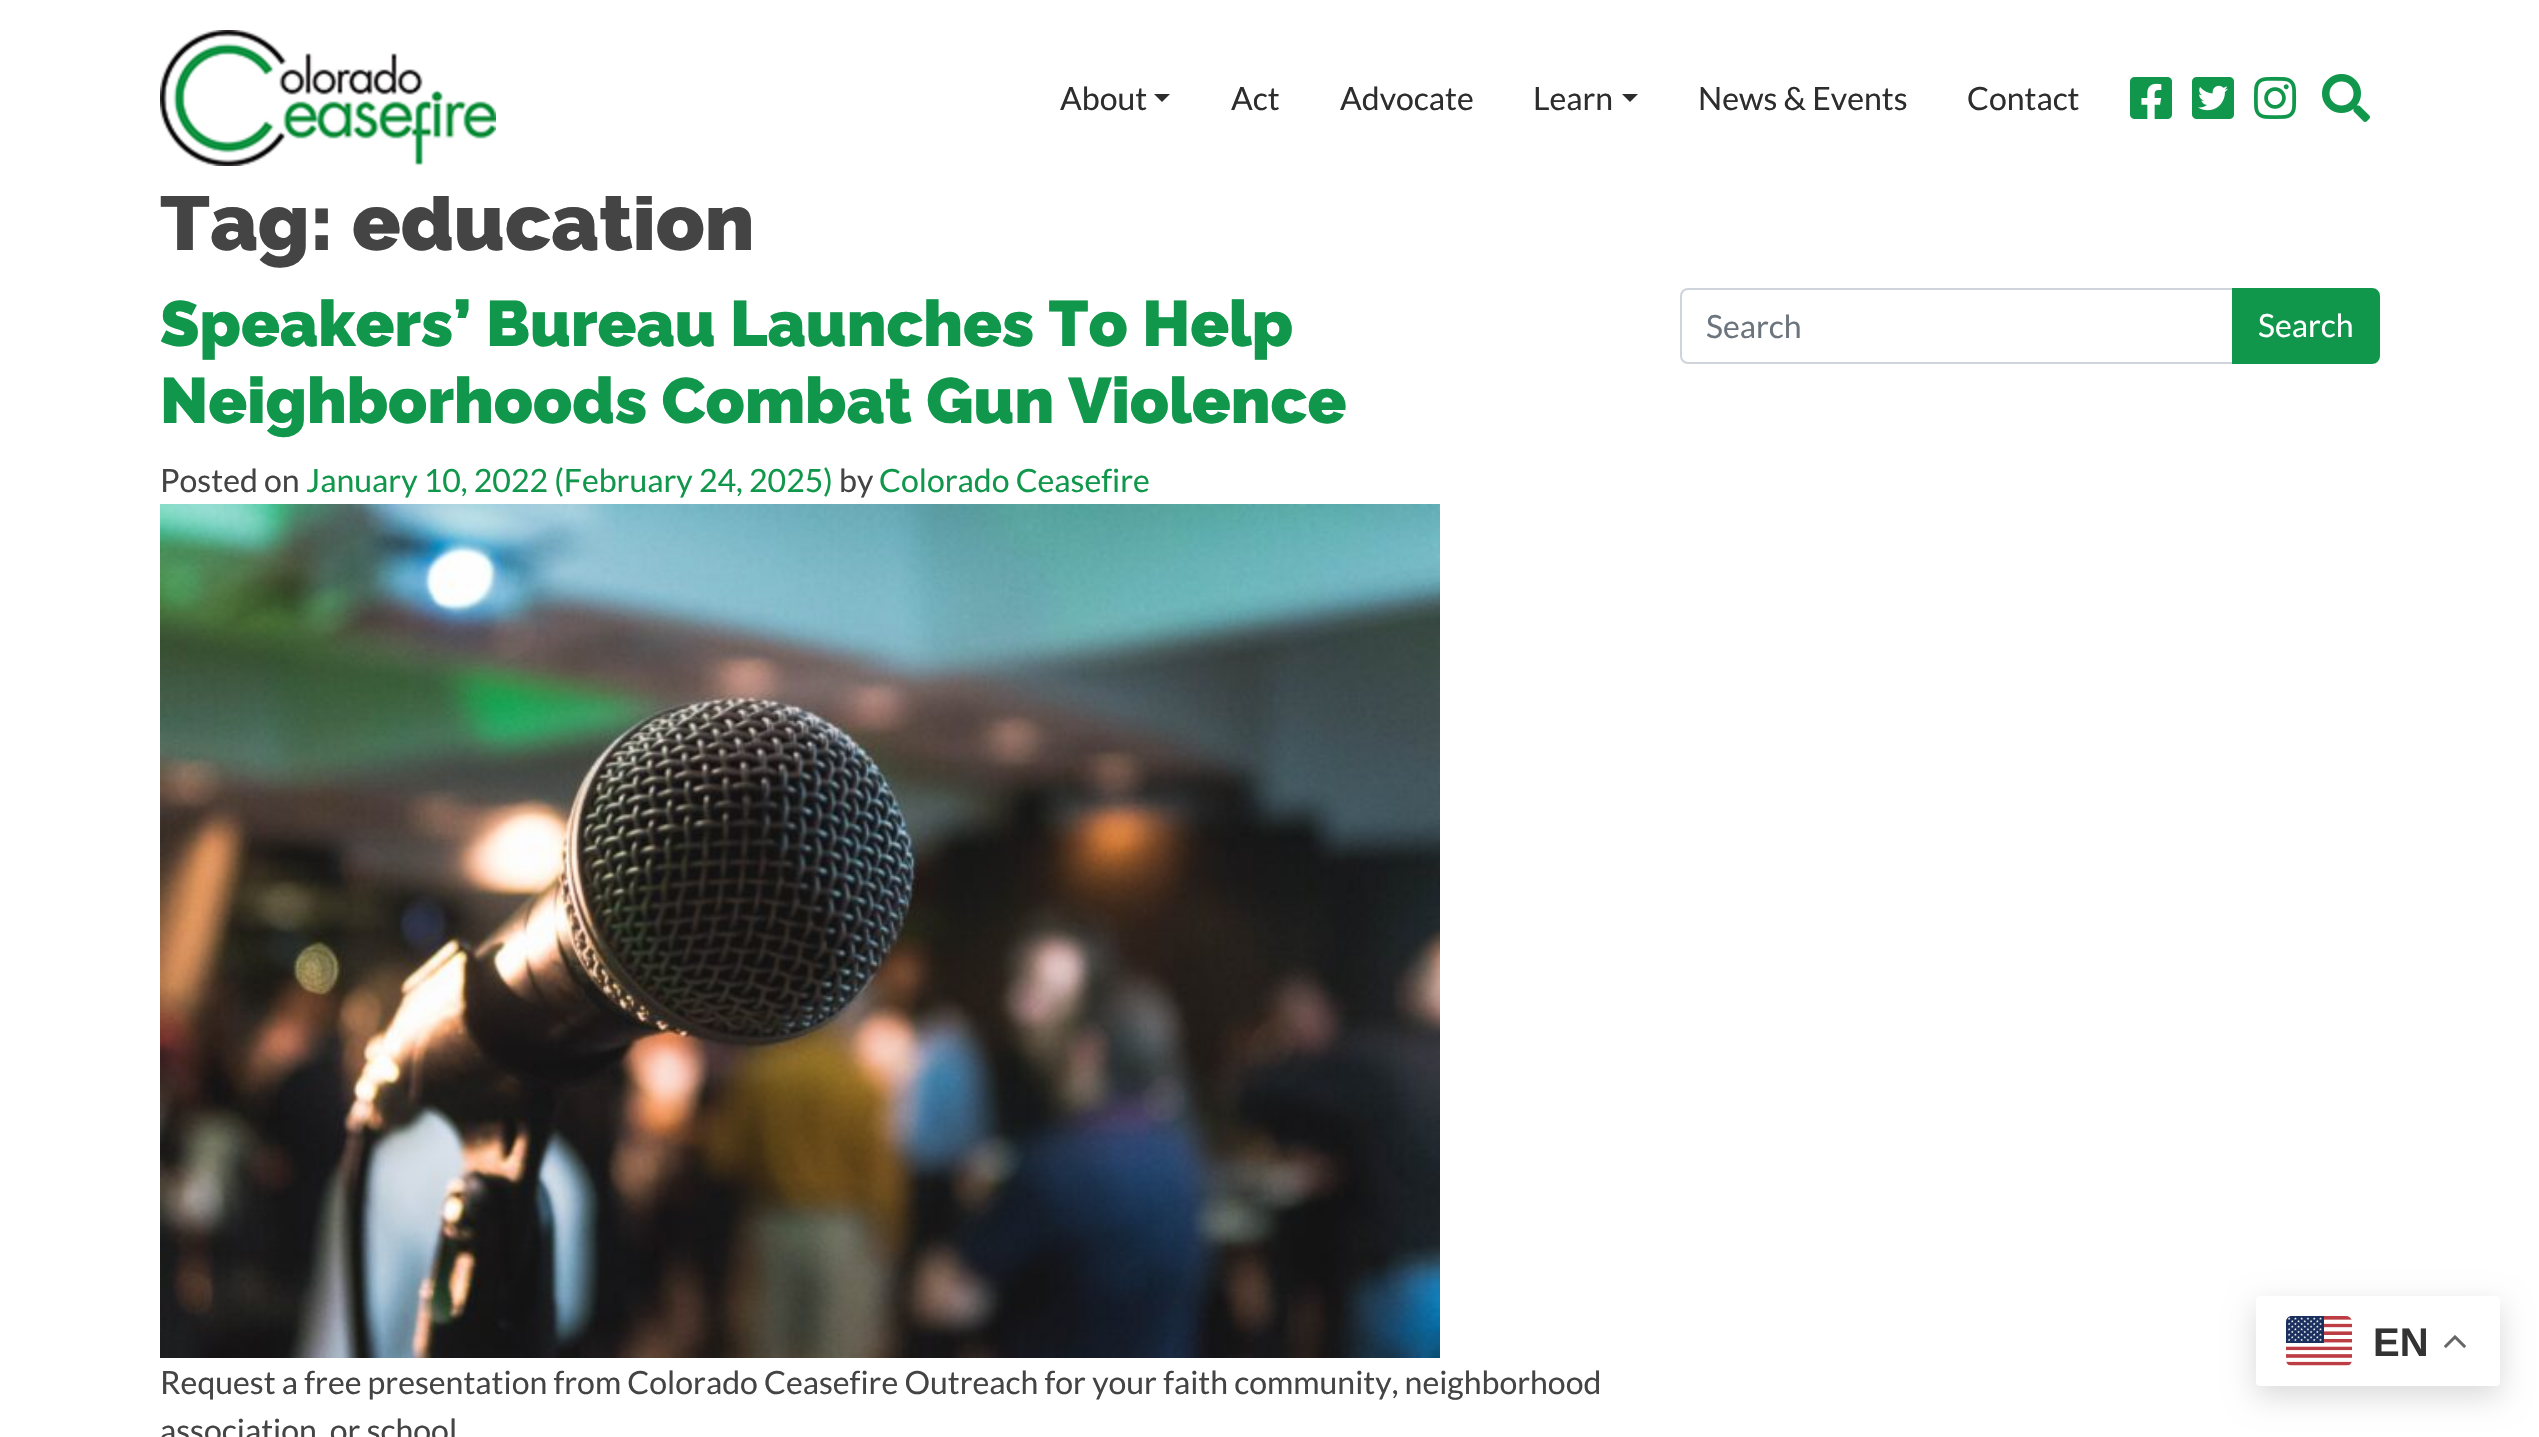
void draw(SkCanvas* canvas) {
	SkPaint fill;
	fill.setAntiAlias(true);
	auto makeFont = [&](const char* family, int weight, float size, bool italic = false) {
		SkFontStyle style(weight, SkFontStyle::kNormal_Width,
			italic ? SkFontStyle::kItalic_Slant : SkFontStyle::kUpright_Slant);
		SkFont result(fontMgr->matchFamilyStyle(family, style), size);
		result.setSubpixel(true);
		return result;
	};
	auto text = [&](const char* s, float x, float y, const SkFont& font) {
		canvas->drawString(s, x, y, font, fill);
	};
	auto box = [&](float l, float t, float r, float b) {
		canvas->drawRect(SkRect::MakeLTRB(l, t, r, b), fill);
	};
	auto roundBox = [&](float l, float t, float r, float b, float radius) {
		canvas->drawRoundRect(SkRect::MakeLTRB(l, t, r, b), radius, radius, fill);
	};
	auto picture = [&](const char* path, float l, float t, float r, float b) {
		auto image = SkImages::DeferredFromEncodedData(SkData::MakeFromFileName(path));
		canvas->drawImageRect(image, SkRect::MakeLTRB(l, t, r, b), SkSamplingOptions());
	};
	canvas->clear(0xFFFFFFFF);
	picture("image0.png", 160, 30, 496, 166);
	fill.setColor(0xFF2D2D2D);
	canvas->drawPath(SkPathBuilder().moveTo(1154, 94).lineTo(1170, 94).lineTo(1162, 102).close().detach(), fill);
	canvas->drawPath(SkPathBuilder().moveTo(1622, 94).lineTo(1638, 94).lineTo(1630, 102).close().detach(), fill);
	picture("image1.png", 2130, 77, 2172, 119);
	picture("image2.png", 2192, 77, 2234, 119);
	picture("image3.png", 2254, 76, 2297, 119);
	picture("image4.png", 2322, 74, 2370, 122);
	picture("image5.png", 160, 504, 1440, 1358);
	fill.setStyle(SkPaint::kStroke_Style);
	fill.setStrokeWidth(2);
	fill.setColor(0xFFCED4DA);
	canvas->drawPath(SkPathBuilder().moveTo(1688, 289).lineTo(2233, 289).lineTo(2233, 363).lineTo(1688, 363).cubicTo(1684, 363, 1681, 360, 1681, 356).lineTo(1681, 296).cubicTo(1681, 292, 1684, 289, 1688, 289).close().detach(), fill);
	fill.setStyle(SkPaint::kFill_Style);
	fill.setColor(0xFF10974B);
	canvas->drawPath(SkPathBuilder().moveTo(2233, 289).lineTo(2372, 289).cubicTo(2376, 289, 2379, 292, 2379, 296).lineTo(2379, 356).cubicTo(2379, 360, 2376, 363, 2372, 363).lineTo(2233, 363).close().detach(), fill);
	fill.setStyle(SkPaint::kStroke_Style);
	canvas->drawPath(SkPathBuilder().moveTo(2233, 289).lineTo(2372, 289).cubicTo(2376, 289, 2379, 292, 2379, 296).lineTo(2379, 356).cubicTo(2379, 360, 2376, 363, 2372, 363).lineTo(2233, 363).close().detach(), fill);
	fill.setStyle(SkPaint::kFill_Style);
	fill.setColor(0x26000000);
	fill.setMaskFilter(SkMaskFilter::MakeBlur(kNormal_SkBlurStyle, 15));
	canvas->drawRoundRect(SkRect::MakeLTRB(2256, 1306, 2500, 1396), 4, 4, fill);
	fill.setMaskFilter(nullptr);
	fill.setColor(0xFFFFFFFF);
	roundBox(2256, 1296, 2500, 1386, 4);
	picture("image6.png", 2286, 1316, 2352, 1366);
	picture("image7.png", 2444, 1335, 2466, 1348);
	auto font1 = makeFont("Lato", 400, 32);
	fill.setColor(0xFF2D2D2D);
	text("About", 1060, 110, font1);
	text("Act", 1231, 110, font1);
	text("Advocate", 1340, 110, font1);
	text("Learn", 1533, 110, font1);
	text("News & Events", 1698, 110, font1);
	text("Contact", 1967, 110, font1);
	auto font2 = makeFont("Raleway", 100, 80);
	fill.setColor(0xFF444444);
	text("Tag: education", 160, 250, font2);
	fill.setColor(0xFFFFFFFF);
	box(160, 191, 652, 196);
	auto font3 = makeFont("Raleway", 100, 64);
	fill.setColor(0xFF10974B);
	text("Speakers’ Bureau Launches To Help", 160, 346, font3);
	text("Neighborhoods Combat Gun Violence", 160, 423, font3);
	fill.setColor(0xFF444444);
	text("Posted on", 160, 492, font1);
	fill.setColor(0xFF10974B);
	text("January 10, 2022 (February 24, 2025)", 306, 492, font1);
	fill.setColor(0xFF444444);
	text("by", 839, 492, font1);
	fill.setColor(0xFF10974B);
	text("Colorado Ceasefire", 879, 492, font1);
	fill.setColor(0xFF444444);
	text("Request a free presentation from Colorado Ceasefire Outreach for your faith community, neighborhood", 160, 1394, font1);
	text("association, or school", 160, 1442, font1);
	fill.setColor(0xFF6C757D);
	text("Search", 1706, 338, font1);
	fill.setColor(0xFFFFFFFF);
	text("Search", 2258, 337, font1);
	auto font4 = makeFont("Liberation Sans", 700, 40);
	fill.setColor(0xFF333333);
	text("EN", 2373, 1356, font4);
}
